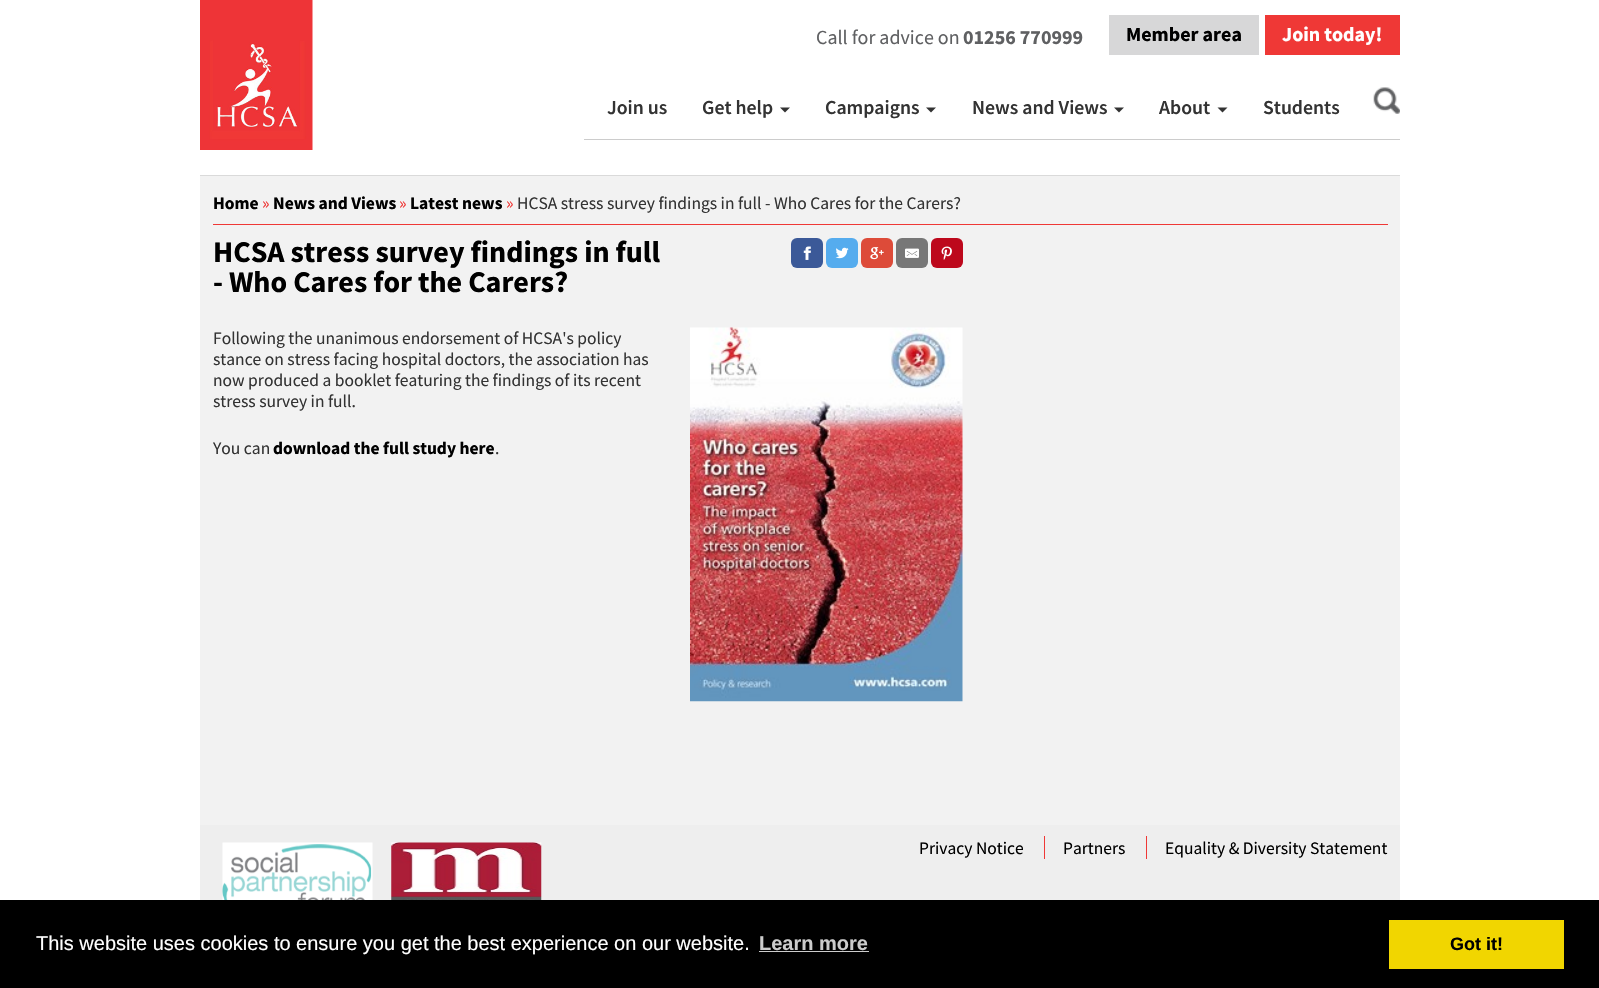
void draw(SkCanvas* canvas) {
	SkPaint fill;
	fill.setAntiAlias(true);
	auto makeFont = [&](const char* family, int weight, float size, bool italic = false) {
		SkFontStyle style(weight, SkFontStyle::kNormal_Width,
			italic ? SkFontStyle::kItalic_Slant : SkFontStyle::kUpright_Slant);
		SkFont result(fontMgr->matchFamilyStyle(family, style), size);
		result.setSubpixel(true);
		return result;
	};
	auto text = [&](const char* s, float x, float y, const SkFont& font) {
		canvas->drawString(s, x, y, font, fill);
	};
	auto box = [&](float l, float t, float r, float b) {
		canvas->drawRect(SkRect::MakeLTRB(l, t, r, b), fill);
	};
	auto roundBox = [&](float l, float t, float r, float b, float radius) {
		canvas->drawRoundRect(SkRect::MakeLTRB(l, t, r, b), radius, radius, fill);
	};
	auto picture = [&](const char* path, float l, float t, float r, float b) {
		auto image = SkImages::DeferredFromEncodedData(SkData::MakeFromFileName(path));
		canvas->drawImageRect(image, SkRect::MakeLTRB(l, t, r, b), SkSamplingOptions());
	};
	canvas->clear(0xFFFFFFFF);
	picture("image0.png", 200, 0, 313, 150);
	fill.setColor(0xFFD7D7D8);
	box(1109, 15, 1259, 55);
	fill.setColor(0xFFEF3836);
	box(1265, 15, 1400, 55);
	fill.setColor(0xFFCCCCCC);
	box(584, 139, 1400, 140);
	fill.setColor(0xFF333333);
	canvas->drawPath(SkPathBuilder().moveTo(780, 107.5f).lineTo(790, 107.5f).lineTo(785, 112.5f).close().detach(), fill);
	canvas->drawPath(SkPathBuilder().moveTo(926, 107.5f).lineTo(936, 107.5f).lineTo(931, 112.5f).close().detach(), fill);
	canvas->drawPath(SkPathBuilder().moveTo(1114, 107.5f).lineTo(1124, 107.5f).lineTo(1119, 112.5f).close().detach(), fill);
	canvas->drawPath(SkPathBuilder().moveTo(1217.5f, 107.5f).lineTo(1227.5f, 107.5f).lineTo(1222.5f, 112.5f).close().detach(), fill);
	picture("image1.png", 1373, 87, 1400, 114);
	fill.setColor(0xFFF2F2F2);
	box(200, 176, 1400, 825);
	fill.setColor(0xFFDADADA);
	box(200, 175, 1400, 176);
	fill.setColor(0xFFEF3836);
	box(213, 224, 1388, 225);
	fill.setColor(0xFF3B5998);
	roundBox(791, 238, 823, 268, 6);
	picture("image2.png", 803, 246, 811, 260);
	fill.setColor(0xFF55ACEE);
	roundBox(826, 238, 858, 268, 6);
	picture("image3.png", 835, 247, 849, 259);
	fill.setColor(0xFFDD4B39);
	roundBox(861, 238, 893, 268, 6);
	picture("image4.png", 870, 247, 884, 260);
	fill.setColor(0xFF777777);
	roundBox(896, 238, 928, 268, 6);
	picture("image5.png", 905, 248, 919, 258);
	fill.setColor(0xFFBD081C);
	roundBox(931, 238, 963, 268, 6);
	picture("image6.png", 941, 246, 952, 260);
	picture("image7.png", 690, 327, 963, 702);
	fill.setColor(0xFFEEEEEE);
	box(200, 825, 1400, 900);
	picture("image8.png", 222, 842, 373, 900);
	picture("image9.png", 391, 842, 542, 900);
	fill.setColor(0xFFEF3836);
	box(1044, 836, 1045, 859);
	box(1146, 836, 1147, 859);
	fill.setColor(0xFF000000);
	box(0, 900, 1599, 988);
	fill.setColor(0xFFCCCCCC);
	box(759, 951, 869, 952);
	fill.setColor(0xFFF1D600);
	box(1389, 920, 1564, 969);
	auto font1 = makeFont("Source Sans Pro", 400, 20);
	fill.setColor(0xFF5F6062);
	text("Call for advice on", 816, 44, font1);
	auto font2 = makeFont("Source Sans Pro", 700, 20);
	text("01256 770999", 963, 44, font2);
	fill.setColor(0xFF000000);
	text("Member area", 1126, 41, font2);
	fill.setColor(0xFFFFFFFF);
	text("Join today!", 1282, 41, font2);
	auto font3 = makeFont("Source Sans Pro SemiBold", 600, 19.75f);
	fill.setColor(0xFF333333);
	text("Join us", 607, 114, font3);
	text("Get help", 702, 114, font3);
	text("Campaigns", 825, 114, font3);
	text("News and Views", 972, 114, font3);
	text("About", 1159, 114, font3);
	text("Students", 1263, 114, font3);
	auto font4 = makeFont("Source Sans Pro", 700, 17.5f);
	fill.setColor(0xFF000000);
	text("Home", 213, 209, font4);
	auto font5 = makeFont("Source Sans Pro", 400, 17.5f);
	fill.setColor(0xFFEF3836);
	text("»", 262, 209, font5);
	fill.setColor(0xFF000000);
	text("News and Views", 273, 209, font4);
	fill.setColor(0xFFEF3836);
	text("»", 399, 209, font5);
	fill.setColor(0xFF000000);
	text("Latest news", 410, 209, font4);
	fill.setColor(0xFFEF3836);
	text("»", 506, 209, font5);
	fill.setColor(0xFF333333);
	text("HCSA stress survey findings in full - Who Cares for the Carers?", 517, 209, font5);
	auto font6 = makeFont("Source Sans Pro", 700, 30);
	fill.setColor(0xFF000000);
	text("HCSA stress survey findings in full", 213, 262, font6);
	text("- Who Cares for the Carers?", 213, 292, font6);
	fill.setColor(0xFF333333);
	text("Following the unanimous endorsement of HCSA's policy", 213, 344, font5);
	text("stance on stress facing hospital doctors, the association has", 213, 365, font5);
	text("now produced a booklet featuring the findings of its recent", 213, 386, font5);
	text("stress survey in full.", 213, 407, font5);
	text("You can", 213, 454, font5);
	fill.setColor(0xFF000000);
	text("download the full study here", 273, 454, font4);
	fill.setColor(0xFF333333);
	text(".", 495, 454, font5);
	fill.setColor(0xFF000000);
	text("Privacy Notice", 919, 854, font5);
	text("Partners", 1063, 854, font5);
	text("Equality & Diversity Statement", 1165, 854, font5);
	auto font7 = makeFont("Liberation Sans", 400, 20);
	fill.setColor(0xFFFFFFFF);
	text("This website uses cookies to ensure you get the best experience on our website.", 36, 950, font7);
	auto font8 = makeFont("Liberation Sans", 700, 20);
	fill.setColor(0xFFCCCCCC);
	text("Learn more", 759, 950, font8);
	auto font9 = makeFont("Liberation Sans", 700, 18);
	fill.setColor(0xFF000000);
	text("Got it!", 1450, 950, font9);
}
